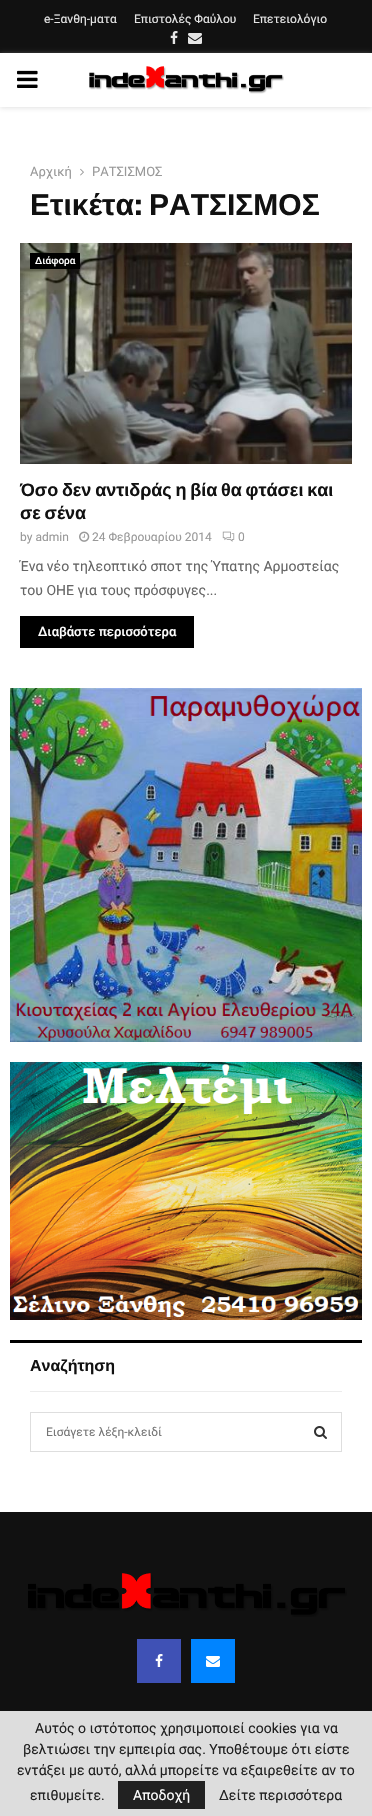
void draw(SkCanvas* canvas) {
	SkPaint fill;
	fill.setAntiAlias(true);
	auto makeFont = [&](const char* family, int weight, float size, bool italic = false) {
		SkFontStyle style(weight, SkFontStyle::kNormal_Width,
			italic ? SkFontStyle::kItalic_Slant : SkFontStyle::kUpright_Slant);
		SkFont result(fontMgr->matchFamilyStyle(family, style), size);
		result.setSubpixel(true);
		return result;
	};
	auto text = [&](const char* s, float x, float y, const SkFont& font) {
		canvas->drawString(s, x, y, font, fill);
	};
	auto spacedText = [&](const char* s, float x, float y, const SkFont& font, const SkPaint& ink, float letter, float word) {
		std::vector<SkGlyphID> glyphs(font.countText(s, strlen(s), SkTextEncoding::kUTF8));
		std::vector<float> xs(glyphs.size());
		font.textToGlyphs(s, strlen(s), SkTextEncoding::kUTF8, glyphs);
		font.getXPos(glyphs, xs, x);
		float extra = 0;
		for (size_t i = 0; i < glyphs.size(); i++) {
			xs[i] += extra;
			extra += letter + word * (glyphs[i] == font.unicharToGlyph(' '));
		}
		canvas->drawTextBlob(SkTextBlob::MakeFromPosHGlyphs(glyphs, xs, y, font), 0, 0, ink);
	};
	auto box = [&](float l, float t, float r, float b) {
		canvas->drawRect(SkRect::MakeLTRB(l, t, r, b), fill);
	};
	auto picture = [&](const char* path, float l, float t, float r, float b) {
		auto image = SkImages::DeferredFromEncodedData(SkData::MakeFromFileName(path));
		canvas->drawImageRect(image, SkRect::MakeLTRB(l, t, r, b), SkSamplingOptions());
	};
	canvas->clear(0xFFFFFFFF);
	fill.setColor(0xFF111111);
	box(0, 0, 372, 53);
	picture("image0.png", 170, 31, 178, 44);
	picture("image1.png", 188, 33, 202, 44);
	canvas->save();
	canvas->clipPath(SkPathBuilder(SkPathFillType::kEvenOdd).moveTo(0, 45).lineTo(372, 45).lineTo(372, 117).lineTo(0, 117).close().moveTo(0, 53).lineTo(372, 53).lineTo(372, 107).lineTo(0, 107).close().detach(), true);
	fill.setColor(0x75BEBEBE);
	fill.setMaskFilter(SkMaskFilter::MakeBlur(kNormal_SkBlurStyle, 2.5f));
	canvas->drawRect(SkRect::MakeLTRB(0, 54, 372, 108), fill);
	fill.setMaskFilter(nullptr);
	canvas->restore();
	picture("image2.png", 17, 70, 38, 88);
	picture("image3.png", 89, 66, 284, 94);
	picture("image4.png", 80, 168, 84, 176);
	picture("image5.png", 20, 243, 352, 464);
	fill.setColor(0xFF000000);
	box(30, 253, 80, 269);
	picture("image6.png", 79, 531, 90, 542);
	picture("image7.png", 222, 531, 235, 542);
	box(20, 616, 194, 648);
	picture("image8.png", 10, 688, 362, 1042);
	picture("image9.png", 10, 1062, 362, 1320);
	fill.setColor(0xFFECECEC);
	box(30, 1391, 342, 1392);
	fill.setColor(0xFF000000);
	box(10, 1340, 362, 1343);
	fill.setStyle(SkPaint::kStroke_Style);
	fill.setStrokeWidth(1);
	fill.setColor(0xFFDEDEDE);
	canvas->drawRect(SkRect::MakeLTRB(30.5f, 1412.5f, 341.5f, 1451.5f), fill);
	picture("image10.png", 314, 1426, 327, 1439);
	fill.setStyle(SkPaint::kFill_Style);
	fill.setColor(0xFF111111);
	box(0, 1512, 372, 1711);
	picture("image11.png", 28, 1573, 347, 1617);
	fill.setColor(0xFF3F51B5);
	box(137, 1639, 181, 1683);
	picture("image12.png", 155, 1654, 163, 1667);
	fill.setColor(0xFF0084FF);
	box(191, 1639, 235, 1683);
	picture("image13.png", 206, 1656, 220, 1667);
	fill.setColor(0xFFDDDDDD);
	box(0, 1711, 372, 1816);
	fill.setColor(0xFF212121);
	box(118, 1781, 205, 1809);
	auto font1 = makeFont("Roboto", 400, 12);
	fill.setColor(0xFFE5E5E5);
	text("e-Ξανθη-ματα", 44, 23, font1);
	text("Eπιστολές Φαύλου", 134, 23, font1);
	text("Επετειολόγιο", 253, 23, font1);
	auto font2 = makeFont("Roboto", 400, 13);
	fill.setColor(0xFF999999);
	text("Αρχική", 30, 176, font2);
	text("ΡΑΤΣΙΣΜΟΣ", 92, 176, font2);
	auto font3 = makeFont("Liberation Sans", 700, 30);
	fill.setColor(0xFF111111);
	text("Ετικέτα", 30, 215, font3);
	auto font4 = makeFont("Chivo", 700, 30);
	text(":", 134, 215, font4);
	text("ΡΑΤΣΙΣΜΟΣ", 149, 215, font3);
	auto font5 = makeFont("Roboto", 500, 10);
	fill.setColor(0xFFFFFFFF);
	text("Διάφορα", 35, 264, font5);
	auto font6 = makeFont("Liberation Sans", 700, 18);
	fill.setColor(0xFF111111);
	spacedText("Όσο δεν αντιδράς η βία θα φτάσει και", 20, 496, font6, fill, 0, -1.25f);
	spacedText("σε σένα", 20, 519, font6, fill, 0, -1.25f);
	fill.setColor(0xFF999999);
	text("by admin", 20, 541, font1);
	text("24 Φεβρουαρίου 2014", 92, 541, font1);
	text("0", 238, 541, font1);
	auto font7 = makeFont("Roboto", 400, 14);
	fill.setColor(0xFF666666);
	text("Ένα νέο τηλεοπτικό σποτ της Ύπατης Αρμοστείας", 20, 571, font7);
	text("του ΟΗΕ για τους πρόσφυγες...", 20, 595, font7);
	auto font8 = makeFont("Roboto", 500, 13);
	fill.setColor(0xFFFFFFFF);
	text("Διαβάστε περισσότερα", 38, 636, font8);
	auto font9 = makeFont("Liberation Sans", 700, 16);
	fill.setColor(0xFF111111);
	text("Αναζήτηση", 30, 1371, font9);
	fill.setColor(0xFF757575);
	text("Εισάγετε λέξη-κλειδί", 46, 1436, font1);
	fill.setColor(0xFF212121);
	text("Αυτός ο ιστότοπος χρησιμοποιεί cookies για να", 35, 1733, font7);
	text("βελτιώσει την εμπειρία σας. Υποθέτουμε ότι είστε", 23, 1754, font7);
	text("εντάξει με αυτό, αλλά μπορείτε να εξαιρεθείτε αν το", 17, 1775, font7);
	text("επιθυμείτε.", 30, 1800, font7);
	fill.setColor(0xFFFFFFFF);
	text("Αποδοχή", 133, 1800, font7);
	fill.setColor(0xFF212121);
	text("Δείτε περισσότερα", 219, 1800, font7);
}
